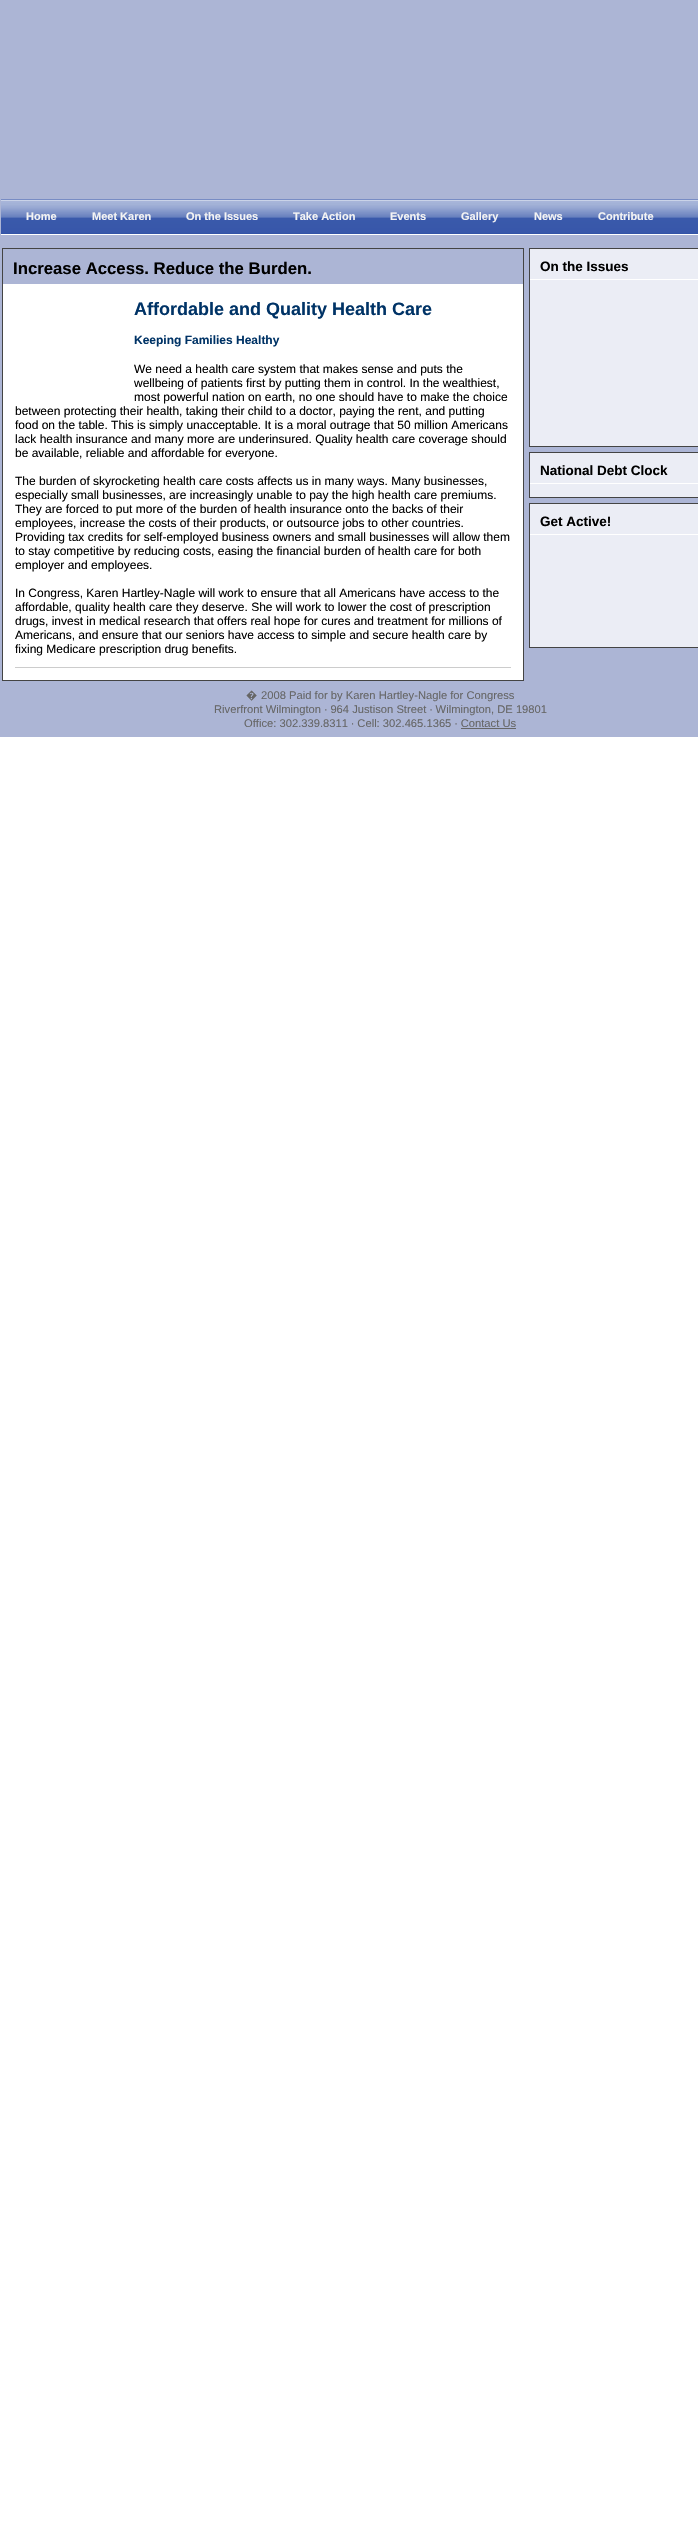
void draw(SkCanvas* canvas) {
	SkPaint fill;
	fill.setAntiAlias(true);
	auto makeFont = [&](const char* family, int weight, float size, bool italic = false) {
		SkFontStyle style(weight, SkFontStyle::kNormal_Width,
			italic ? SkFontStyle::kItalic_Slant : SkFontStyle::kUpright_Slant);
		SkFont result(fontMgr->matchFamilyStyle(family, style), size);
		result.setSubpixel(true);
		return result;
	};
	auto text = [&](const char* s, float x, float y, const SkFont& font) {
		canvas->drawString(s, x, y, font, fill);
	};
	auto box = [&](float l, float t, float r, float b) {
		canvas->drawRect(SkRect::MakeLTRB(l, t, r, b), fill);
	};
	auto picture = [&](const char* path, float l, float t, float r, float b) {
		auto image = SkImages::DeferredFromEncodedData(SkData::MakeFromFileName(path));
		canvas->drawImageRect(image, SkRect::MakeLTRB(l, t, r, b), SkSamplingOptions());
	};
	canvas->clear(0xFFFFFFFF);
	fill.setColor(0xFFACB5D5);
	box(0, 0, 698, 737);
	picture("image0.png", 1, 199, 698, 234);
	fill.setColor(0xFFFFFFFF);
	box(0, 234, 698, 235);
	fill.setColor(0xFFACB5D5);
	box(0, 234, 1, 235);
	fill.setColor(0xFFFFFFFF);
	box(3, 284, 523, 680);
	fill.setStyle(SkPaint::kStroke_Style);
	fill.setStrokeWidth(1);
	fill.setColor(0xFF444444);
	canvas->drawRect(SkRect::MakeLTRB(2.5f, 248.5f, 523.5f, 680.5f), fill);
	fill.setStyle(SkPaint::kFill_Style);
	fill.setColor(0xFFCCCCCC);
	box(15, 667, 511, 668);
	fill.setColor(0xFFEBEDF5);
	canvas->drawRect(SkRect::MakeLTRB(529.5f, 248.5f, 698.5f, 446.5f), fill);
	fill.setStyle(SkPaint::kStroke_Style);
	fill.setColor(0xFF444444);
	canvas->drawRect(SkRect::MakeLTRB(529.5f, 248.5f, 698.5f, 446.5f), fill);
	fill.setStyle(SkPaint::kFill_Style);
	fill.setColor(0xFFFFFFFF);
	box(530, 279, 698, 280);
	fill.setColor(0xFFEBEDF5);
	canvas->drawRect(SkRect::MakeLTRB(529.5f, 452.5f, 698.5f, 497.5f), fill);
	fill.setStyle(SkPaint::kStroke_Style);
	fill.setColor(0xFF444444);
	canvas->drawRect(SkRect::MakeLTRB(529.5f, 452.5f, 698.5f, 497.5f), fill);
	fill.setStyle(SkPaint::kFill_Style);
	fill.setColor(0xFFFFFFFF);
	box(530, 483, 698, 484);
	fill.setColor(0xFFEBEDF5);
	canvas->drawRect(SkRect::MakeLTRB(529.5f, 503.5f, 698.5f, 647.5f), fill);
	fill.setStyle(SkPaint::kStroke_Style);
	fill.setColor(0xFF444444);
	canvas->drawRect(SkRect::MakeLTRB(529.5f, 503.5f, 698.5f, 647.5f), fill);
	fill.setStyle(SkPaint::kFill_Style);
	fill.setColor(0xFFFFFFFF);
	box(530, 534, 698, 535);
	fill.setColor(0xFF666666);
	box(461, 728, 516, 729);
	auto font1 = makeFont("Liberation Sans", 700, 11);
	fill.setColor(0xFFF4F4F4);
	text("Home", 26, 220, font1);
	text("Meet Karen", 92, 220, font1);
	text("On the Issues", 186, 220, font1);
	text("Take Action", 293, 220, font1);
	text("Events", 390, 220, font1);
	text("Gallery", 461, 220, font1);
	text("News", 534, 220, font1);
	text("Contribute", 598, 220, font1);
	auto font2 = makeFont("Liberation Sans", 700, 16.75f);
	fill.setColor(0xFF000000);
	text("Increase Access. Reduce the Burden.", 13, 274, font2);
	auto font3 = makeFont("Liberation Sans", 700, 18);
	fill.setColor(0xFF003366);
	text("Affordable and Quality Health Care", 134, 315, font3);
	auto font4 = makeFont("Liberation Sans", 700, 12);
	text("Keeping Families Healthy", 134, 344, font4);
	auto font5 = makeFont("Liberation Sans", 400, 12);
	fill.setColor(0xFF000000);
	text("We need a health care system that makes sense and puts the", 134, 373, font5);
	text("wellbeing of patients first by putting them in control. In the wealthiest,", 134, 387, font5);
	text("most powerful nation on earth, no one should have to make the choice", 134, 401, font5);
	text("between protecting their health, taking their child to a doctor, paying the rent, and putting", 15, 415, font5);
	text("food on the table. This is simply unacceptable. It is a moral outrage that 50 million Americans", 15, 429, font5);
	text("lack health insurance and many more are underinsured. Quality health care coverage should", 15, 443, font5);
	text("be available, reliable and affordable for everyone.", 15, 457, font5);
	text("The burden of skyrocketing health care costs affects us in many ways. Many businesses,", 15, 485, font5);
	text("especially small businesses, are increasingly unable to pay the high health care premiums.", 15, 499, font5);
	text("They are forced to put more of the burden of health insurance onto the backs of their", 15, 513, font5);
	text("employees, increase the costs of their products, or outsource jobs to other countries.", 15, 527, font5);
	text("Providing tax credits for self-employed business owners and small businesses will allow them", 15, 541, font5);
	text("to stay competitive by reducing costs, easing the financial burden of health care for both", 15, 555, font5);
	text("employer and employees.", 15, 569, font5);
	text("In Congress, Karen Hartley-Nagle will work to ensure that all Americans have access to the", 15, 597, font5);
	text("affordable, quality health care they deserve. She will work to lower the cost of prescription", 15, 611, font5);
	text("drugs, invest in medical research that offers real hope for cures and treatment for millions of", 15, 625, font5);
	text("Americans, and ensure that our seniors have access to simple and secure health care by", 15, 639, font5);
	text("fixing Medicare prescription drug benefits.", 15, 653, font5);
	auto font6 = makeFont("Liberation Sans", 700, 13.5f);
	text("On the Issues", 540, 271, font6);
	text("National Debt Clock", 540, 475, font6);
	text("Get Active!", 540, 526, font6);
	auto font7 = makeFont("Noto Sans", 400, 11.2f);
	fill.setColor(0xFF666666);
	text("�", 246, 699, font7);
	auto font8 = makeFont("Liberation Sans", 400, 11.2f);
	text("2008 Paid for by Karen Hartley-Nagle for Congress", 261, 699, font8);
	text("Riverfront Wilmington ∙ 964 Justison Street ∙ Wilmington, DE 19801", 214, 713, font8);
	text("Office: 302.339.8311 ∙ Cell: 302.465.1365 ∙ Contact Us", 244, 727, font8);
}
